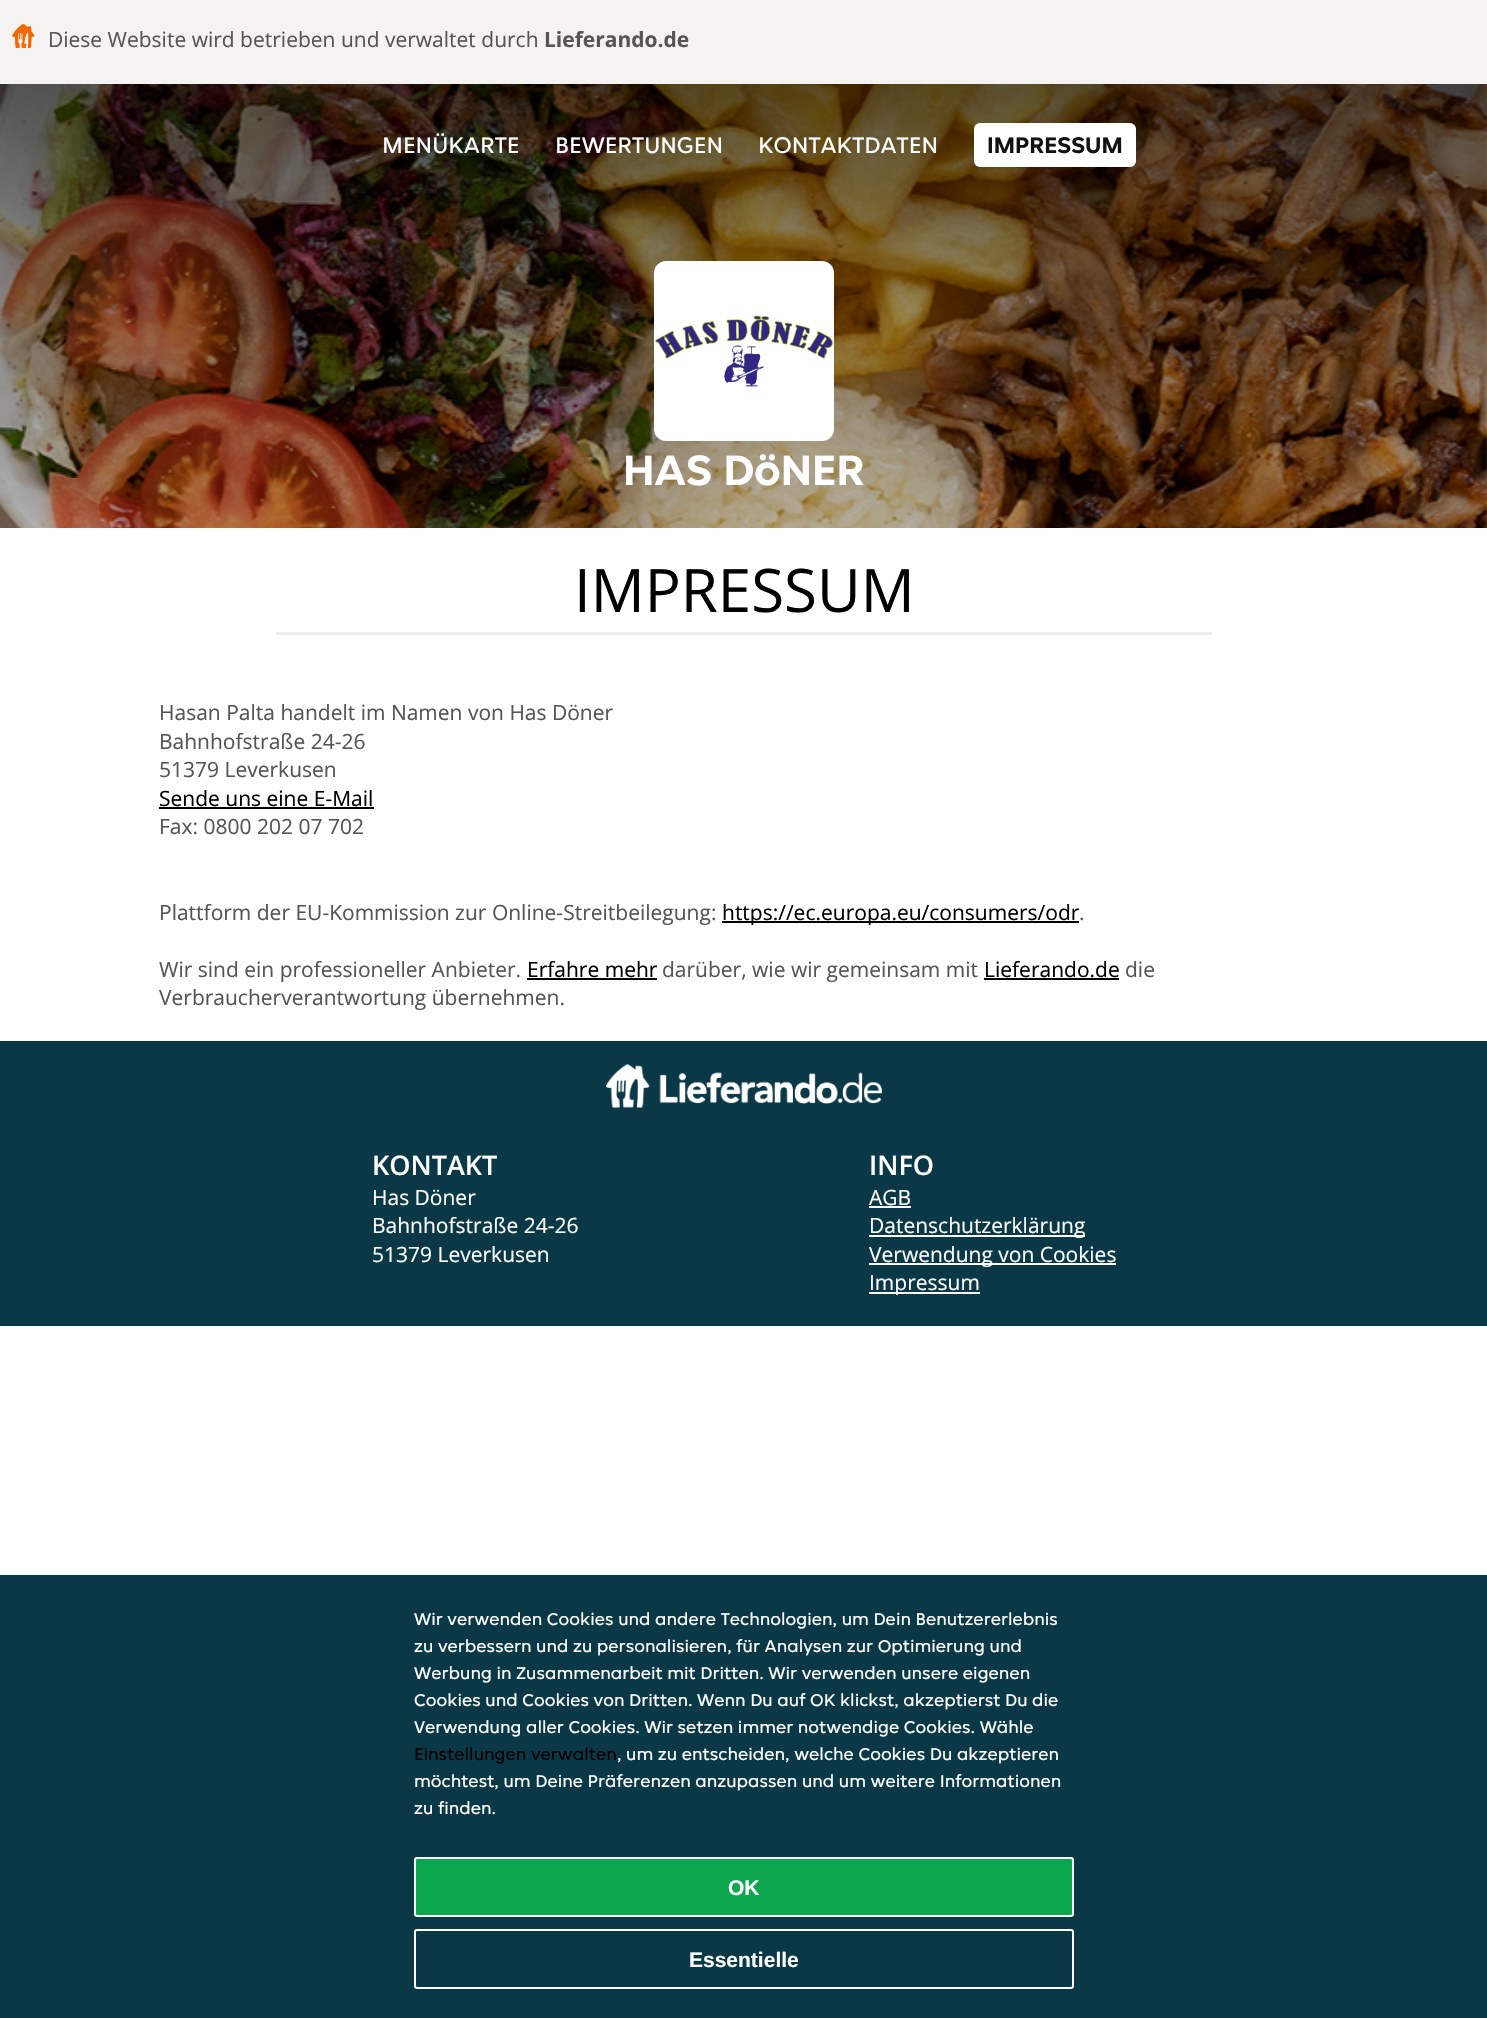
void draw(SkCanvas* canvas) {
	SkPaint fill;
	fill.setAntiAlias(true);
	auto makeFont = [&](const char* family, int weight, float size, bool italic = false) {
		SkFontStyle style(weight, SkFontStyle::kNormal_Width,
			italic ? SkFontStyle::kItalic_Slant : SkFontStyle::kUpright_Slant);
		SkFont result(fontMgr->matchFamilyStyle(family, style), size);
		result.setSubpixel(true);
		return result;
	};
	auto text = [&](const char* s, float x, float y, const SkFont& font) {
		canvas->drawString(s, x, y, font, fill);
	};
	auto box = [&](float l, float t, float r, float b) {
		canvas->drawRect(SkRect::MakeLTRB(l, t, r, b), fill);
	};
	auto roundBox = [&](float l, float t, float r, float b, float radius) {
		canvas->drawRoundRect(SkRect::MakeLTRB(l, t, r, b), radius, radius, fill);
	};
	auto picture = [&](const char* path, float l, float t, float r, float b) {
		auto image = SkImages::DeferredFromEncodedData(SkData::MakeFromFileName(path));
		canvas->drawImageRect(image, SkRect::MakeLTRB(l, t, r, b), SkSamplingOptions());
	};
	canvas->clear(0xFFFFFFFF);
	fill.setColor(0xFFF5F3F1);
	box(0, 0, 1487, 84);
	picture("image0.png", 12, 24, 35, 48);
	picture("image1.png", 0, 84, 1487, 528);
	{
		const SkColor colors[] = {0xB3000000, 0x66000000, 0x33000000, 0x00000000};
		const float stops[] = {0, 0.33f, 0.67f, 1};
		const SkPoint ends[] = {{744, 0}, {744, 750}};
		fill.setShader(SkGradientShader::MakeLinear(ends, colors, stops, 4, SkTileMode::kClamp));
		fill.setAlpha(255);
	}
	box(0, 84, 1487, 528);
	fill.setShader(nullptr);
	fill.setColor(0xFFFFFFFF);
	roundBox(974, 123, 1136, 167, 6);
	roundBox(654, 261, 834, 441, 12);
	picture("image2.png", 654, 315, 834, 387);
	fill.setColor(0xFFEEEEEE);
	box(276, 632, 1212, 635);
	fill.setColor(0xFF000000);
	box(159, 807, 374, 809);
	box(722, 921, 1079, 923);
	box(527, 978, 657, 980);
	box(984, 978, 1119, 980);
	fill.setColor(0xFF0A3847);
	box(0, 1041, 1487, 1326);
	picture("image3.png", 606, 1064, 882, 1108);
	fill.setColor(0xFFFFFFFF);
	box(869, 1206, 911, 1208);
	box(869, 1235, 1085, 1237);
	box(869, 1263, 1116, 1265);
	box(869, 1292, 980, 1294);
	fill.setColor(0xFF0A3847);
	box(0, 1575, 1487, 2018);
	fill.setColor(0xFF0CA64F);
	canvas->drawRoundRect(SkRect::MakeLTRB(415, 1858, 1073, 1916), 2, 2, fill);
	fill.setStyle(SkPaint::kStroke_Style);
	fill.setStrokeWidth(2);
	fill.setColor(0xFFFFFFFF);
	canvas->drawRoundRect(SkRect::MakeLTRB(415, 1858, 1073, 1916), 2, 2, fill);
	canvas->drawRoundRect(SkRect::MakeLTRB(415, 1930, 1073, 1988), 2, 2, fill);
	auto font1 = makeFont("Open Sans", 400, 21);
	fill.setStyle(SkPaint::kFill_Style);
	fill.setColor(0xFF555555);
	text("Diese Website wird betrieben und verwaltet durch", 48, 47, font1);
	auto font2 = makeFont("Open Sans", 700, 21);
	text("Lieferando.de", 544, 47, font2);
	auto font3 = makeFont("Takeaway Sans", 400, 24);
	fill.setColor(0xFFFFFFFF);
	text("MENÜKARTE", 382, 153, font3);
	text("BEWERTUNGEN", 555, 153, font3);
	text("KONTAKTDATEN", 758, 153, font3);
	auto font4 = makeFont("Takeaway Sans", 700, 24);
	fill.setColor(0xFF121212);
	text("IMPRESSUM", 987, 153, font4);
	auto font5 = makeFont("Takeaway Sans", 700, 45);
	fill.setColor(0xFFFFFFFF);
	text("HAS DöNER", 623, 485, font5);
	auto font6 = makeFont("Open Sans", 400, 60);
	fill.setColor(0xFF000000);
	text("IMPRESSUM", 574, 612, font6);
	fill.setColor(0xFF555555);
	text("Hasan Palta handelt im Namen von Has Döner", 159, 720, font1);
	text("Bahnhofstraße 24-26", 159, 749, font1);
	text("51379 Leverkusen", 159, 777, font1);
	fill.setColor(0xFF000000);
	text("Sende uns eine E-Mail", 159, 806, font1);
	fill.setColor(0xFF555555);
	text("Fax: 0800 202 07 702", 159, 834, font1);
	text("Plattform der EU-Kommission zur Online-Streitbeilegung:", 159, 920, font1);
	fill.setColor(0xFF000000);
	text("https://ec.europa.eu/consumers/odr", 722, 920, font1);
	fill.setColor(0xFF555555);
	text(".", 1079, 920, font1);
	text("Wir sind ein professioneller Anbieter.", 159, 977, font1);
	fill.setColor(0xFF000000);
	text("Erfahre mehr", 527, 977, font1);
	fill.setColor(0xFF555555);
	text("darüber, wie wir gemeinsam mit", 662, 977, font1);
	fill.setColor(0xFF000000);
	text("Lieferando.de", 984, 977, font1);
	fill.setColor(0xFF555555);
	text("die", 1125, 977, font1);
	text("Verbraucherverantwortung übernehmen.", 159, 1005, font1);
	auto font7 = makeFont("Open Sans", 600, 27);
	fill.setColor(0xFFFFFFFF);
	text("KONTAKT", 372, 1175, font7);
	text("Has Döner", 372, 1205, font1);
	text("Bahnhofstraße 24-26", 372, 1233, font1);
	text("51379 Leverkusen", 372, 1262, font1);
	text("INFO", 869, 1175, font7);
	text("AGB", 869, 1205, font1);
	text("Datenschutzerklärung", 869, 1233, font1);
	text("Verwendung von Cookies", 869, 1262, font1);
	text("Impressum", 869, 1290, font1);
	auto font8 = makeFont("Takeaway Sans", 400, 18);
	text("Wir verwenden Cookies und andere Technologien, um Dein Benutzererlebnis", 414, 1625, font8);
	text("zu verbessern und zu personalisieren, für Analysen zur Optimierung und", 414, 1652, font8);
	text("Werbung in Zusammenarbeit mit Dritten. Wir verwenden unsere eigenen", 414, 1679, font8);
	text("Cookies und Cookies von Dritten. Wenn Du auf OK klickst, akzeptierst Du die", 414, 1706, font8);
	text("Verwendung aller Cookies. Wir setzen immer notwendige Cookies. Wähle", 414, 1733, font8);
	fill.setColor(0xFF000000);
	text("Einstellungen verwalten", 414, 1760, font8);
	fill.setColor(0xFFFFFFFF);
	text(", um zu entscheiden, welche Cookies Du akzeptieren", 617, 1760, font8);
	text("möchtest, um Deine Präferenzen anzupassen und um weitere Informationen", 414, 1787, font8);
	text("zu finden.", 414, 1814, font8);
	auto font9 = makeFont("Liberation Sans", 700, 21);
	text("OK", 728, 1895, font9);
	text("Essentielle", 689, 1967, font9);
}
